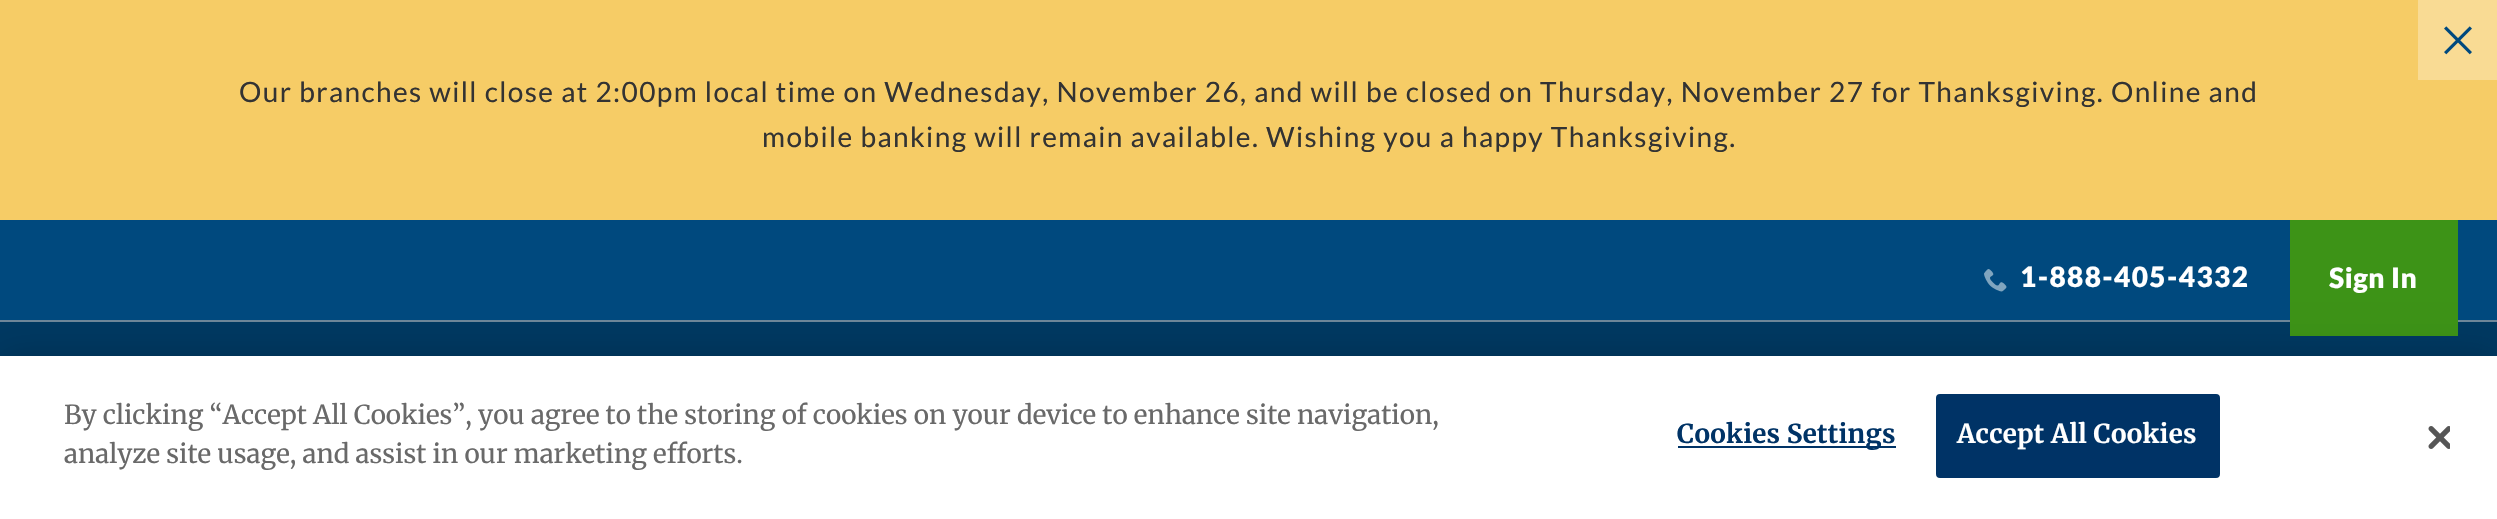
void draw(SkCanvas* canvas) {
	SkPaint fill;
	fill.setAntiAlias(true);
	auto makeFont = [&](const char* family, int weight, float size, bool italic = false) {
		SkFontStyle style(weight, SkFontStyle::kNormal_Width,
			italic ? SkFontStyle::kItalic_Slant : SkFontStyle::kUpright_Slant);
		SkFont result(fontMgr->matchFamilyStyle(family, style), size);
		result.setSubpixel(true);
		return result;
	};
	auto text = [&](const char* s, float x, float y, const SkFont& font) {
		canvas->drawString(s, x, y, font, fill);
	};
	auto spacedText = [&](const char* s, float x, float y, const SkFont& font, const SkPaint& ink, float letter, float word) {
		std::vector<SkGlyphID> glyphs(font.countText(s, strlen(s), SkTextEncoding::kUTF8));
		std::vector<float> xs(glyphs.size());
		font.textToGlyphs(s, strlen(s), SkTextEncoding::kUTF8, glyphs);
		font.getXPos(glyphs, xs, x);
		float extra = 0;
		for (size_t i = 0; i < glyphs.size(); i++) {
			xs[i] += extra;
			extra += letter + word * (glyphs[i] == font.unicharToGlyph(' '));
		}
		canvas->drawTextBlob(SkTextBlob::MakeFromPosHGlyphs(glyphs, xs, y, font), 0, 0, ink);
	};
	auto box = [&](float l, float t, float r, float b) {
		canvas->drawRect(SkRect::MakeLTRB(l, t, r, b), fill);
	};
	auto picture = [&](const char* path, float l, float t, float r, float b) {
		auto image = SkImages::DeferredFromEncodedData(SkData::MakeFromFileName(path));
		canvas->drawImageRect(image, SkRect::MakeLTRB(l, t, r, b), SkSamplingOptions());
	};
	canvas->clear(0xFF6E879A);
	fill.setColor(0xFFF6CC66);
	box(0, 0, 2497, 220);
	fill.setColor(0xFFF9DB94);
	box(2418, 0, 2497, 80);
	picture("image0.png", 2444, 26, 2472, 55);
	fill.setColor(0xFF00497E);
	box(0, 220, 2497, 320);
	picture("image1.png", 1984, 269, 2007, 292);
	fill.setColor(0xFF003962);
	box(0, 322, 2497, 356);
	fill.setColor(0xFF3D9317);
	box(2290, 220, 2458, 336);
	fill.setColor(0x33000000);
	fill.setMaskFilter(SkMaskFilter::MakeBlur(kNormal_SkBlurStyle, 18));
	canvas->drawRect(SkRect::MakeLTRB(0, 356, 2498, 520), fill);
	fill.setMaskFilter(nullptr);
	fill.setColor(0xFFFFFFFF);
	box(0, 356, 2497, 519);
	fill.setColor(0xFF003366);
	box(1678, 446, 1896, 448);
	canvas->drawRoundRect(SkRect::MakeLTRB(1937, 395, 2219, 477), 3, 3, fill);
	fill.setStyle(SkPaint::kStroke_Style);
	fill.setStrokeWidth(2);
	canvas->drawRoundRect(SkRect::MakeLTRB(1937, 395, 2219, 477), 3, 3, fill);
	picture("image2.png", 2428, 426, 2450, 449);
	auto font1 = makeFont("Lato", 400, 28);
	fill.setStyle(SkPaint::kFill_Style);
	fill.setColor(0xFF333333);
	spacedText("Our branches will close at 2:00pm local time on Wednesday, November 26, and will be closed on Thursday, November 27 for Thanksgiving. Online and", 239, 102, font1, fill, 1.4f, 0);
	spacedText("mobile banking will remain available. Wishing you a happy Thanksgiving.", 762, 147, font1, fill, 1.4f, 0);
	auto font2 = makeFont("Lato", 900, 28);
	fill.setColor(0xFFFFFFFF);
	spacedText("1-888-405-4332", 2020, 287, font2, fill, 1.4f, 0);
	spacedText("Sign In", 2329, 288, font2, fill, 0.5f, 0);
	auto font3 = makeFont("Merriweather", 400, 26.02f);
	fill.setColor(0xFF696969);
	text("By clicking “Accept All Cookies”, you agree to the storing of cookies on your device to enhance site navigation,", 64, 424, font3);
	text("analyze site usage, and assist in our marketing efforts.", 64, 463, font3);
	auto font4 = makeFont("Merriweather", 700, 26.02f);
	fill.setColor(0xFF003366);
	spacedText("Cookies Settings", 1677, 443, font4, fill, 0.25f, 0);
	fill.setColor(0xFFFFFFFF);
	spacedText("Accept All Cookies", 1957, 443, font4, fill, 0.25f, 0);
}
